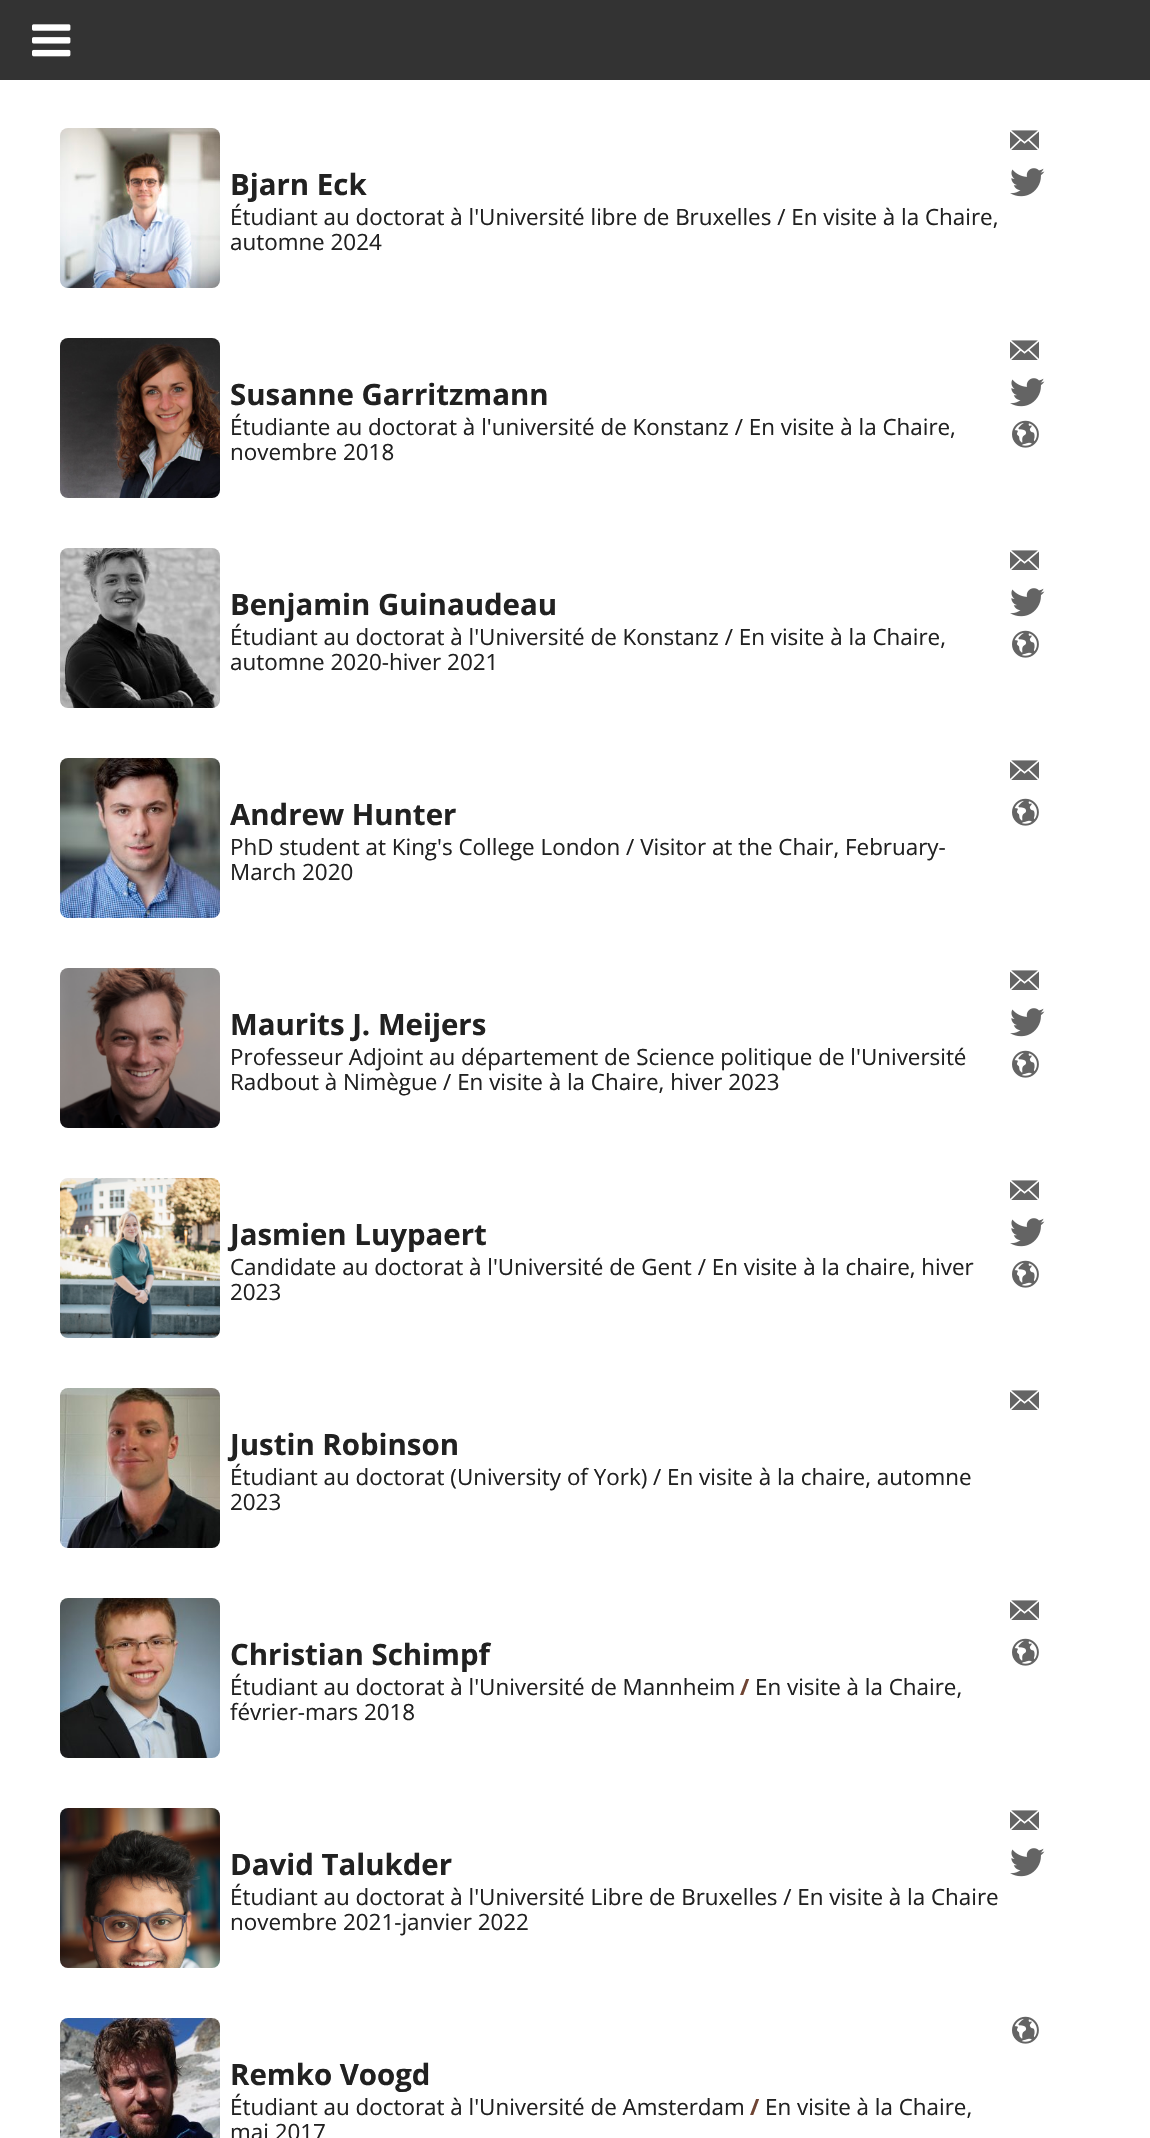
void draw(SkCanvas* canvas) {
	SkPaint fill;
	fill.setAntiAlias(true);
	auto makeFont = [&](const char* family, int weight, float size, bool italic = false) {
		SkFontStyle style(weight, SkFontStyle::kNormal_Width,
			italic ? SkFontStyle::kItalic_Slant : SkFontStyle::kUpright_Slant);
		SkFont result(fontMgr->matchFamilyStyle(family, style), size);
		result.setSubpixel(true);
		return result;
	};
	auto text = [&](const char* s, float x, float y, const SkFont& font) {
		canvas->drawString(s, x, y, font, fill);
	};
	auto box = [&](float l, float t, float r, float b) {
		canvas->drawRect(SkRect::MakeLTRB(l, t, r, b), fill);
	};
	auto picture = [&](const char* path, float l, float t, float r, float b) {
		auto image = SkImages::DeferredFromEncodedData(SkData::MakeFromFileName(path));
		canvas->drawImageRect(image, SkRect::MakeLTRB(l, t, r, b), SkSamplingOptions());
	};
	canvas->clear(0xFFFFFFFF);
	fill.setColor(0xFF333333);
	box(0, 0, 1150, 80);
	picture("image0.png", 32, 24, 71, 57);
	picture("image1.png", 1010, 130, 1039, 150);
	picture("image2.png", 1010, 168, 1045, 197);
	picture("image3.png", 60, 128, 220, 288);
	picture("image4.png", 60, 338, 220, 498);
	picture("image1.png", 1010, 340, 1039, 360);
	picture("image2.png", 1010, 378, 1045, 407);
	picture("image5.png", 1012, 420, 1039, 448);
	picture("image6.png", 60, 548, 220, 708);
	picture("image1.png", 1010, 550, 1039, 570);
	picture("image2.png", 1010, 588, 1045, 617);
	picture("image5.png", 1012, 630, 1039, 658);
	picture("image1.png", 1010, 760, 1039, 780);
	picture("image5.png", 1012, 798, 1039, 826);
	picture("image7.png", 60, 758, 220, 918);
	picture("image8.png", 60, 968, 220, 1128);
	picture("image1.png", 1010, 970, 1039, 990);
	picture("image2.png", 1010, 1008, 1045, 1037);
	picture("image5.png", 1012, 1050, 1039, 1078);
	picture("image9.png", 60, 1178, 220, 1338);
	picture("image1.png", 1010, 1180, 1039, 1200);
	picture("image2.png", 1010, 1218, 1045, 1247);
	picture("image5.png", 1012, 1260, 1039, 1288);
	picture("image1.png", 1010, 1390, 1039, 1410);
	picture("image10.png", 60, 1388, 220, 1548);
	picture("image1.png", 1010, 1600, 1039, 1620);
	picture("image5.png", 1012, 1638, 1039, 1666);
	picture("image11.png", 60, 1598, 220, 1758);
	picture("image1.png", 1010, 1810, 1039, 1830);
	picture("image2.png", 1010, 1848, 1045, 1877);
	picture("image12.png", 60, 1808, 220, 1968);
	picture("image5.png", 1012, 2016, 1039, 2044);
	picture("image13.png", 60, 2018, 220, 2138);
	auto font1 = makeFont("Open Sans", 700, 29.4f);
	fill.setColor(0xFF212121);
	text("Bjarn Eck", 230, 195, font1);
	auto font2 = makeFont("Open Sans", 400, 22.4f);
	text("Étudiant au doctorat à l'Université libre de Bruxelles / En visite à la Chaire,", 230, 225, font2);
	text("automne 2024", 230, 250, font2);
	text("Susanne Garritzmann", 230, 405, font1);
	text("Étudiante au doctorat à l'université de Konstanz / En visite à la Chaire,", 230, 435, font2);
	text("novembre 2018", 230, 460, font2);
	text("Benjamin Guinaudeau", 230, 615, font1);
	text("Étudiant au doctorat à l'Université de Konstanz / En visite à la Chaire,", 230, 645, font2);
	text("automne 2020-hiver 2021", 230, 670, font2);
	text("Andrew Hunter", 230, 825, font1);
	text("PhD student at King's College London / Visitor at the Chair, February-", 230, 855, font2);
	text("March 2020", 230, 880, font2);
	text("Maurits J. Meijers", 230, 1035, font1);
	text("Professeur Adjoint au département de Science politique de l'Université", 230, 1065, font2);
	text("Radbout à Nimègue / En visite à la Chaire, hiver 2023", 230, 1090, font2);
	text("Jasmien Luypaert", 230, 1245, font1);
	text("Candidate au doctorat à l'Université de Gent / En visite à la chaire, hiver", 230, 1275, font2);
	text("2023", 230, 1300, font2);
	text("Justin Robinson", 230, 1455, font1);
	text("Étudiant au doctorat (University of York) / En visite à la chaire, automne", 230, 1485, font2);
	text("2023", 230, 1510, font2);
	text("Christian Schimpf", 230, 1665, font1);
	text("Étudiant au doctorat à l'Université de Mannheim", 230, 1695, font2);
	auto font3 = makeFont("Open Sans", 700, 22.4f);
	fill.setColor(0xFF704534);
	text("/", 740, 1695, font3);
	fill.setColor(0xFF212121);
	text("En visite à la Chaire,", 755, 1695, font2);
	text("février-mars 2018", 230, 1720, font2);
	text("David Talukder", 230, 1875, font1);
	text("Étudiant au doctorat à l'Université Libre de Bruxelles / En visite à la Chaire", 230, 1905, font2);
	text("novembre 2021-janvier 2022", 230, 1930, font2);
	text("Remko Voogd", 230, 2085, font1);
	text("Étudiant au doctorat à l'Université de Amsterdam", 230, 2115, font2);
	fill.setColor(0xFF704534);
	text("/", 750, 2115, font3);
	fill.setColor(0xFF212121);
	text("En visite à la Chaire,", 765, 2115, font2);
	text("mai 2017", 230, 2140, font2);
}
